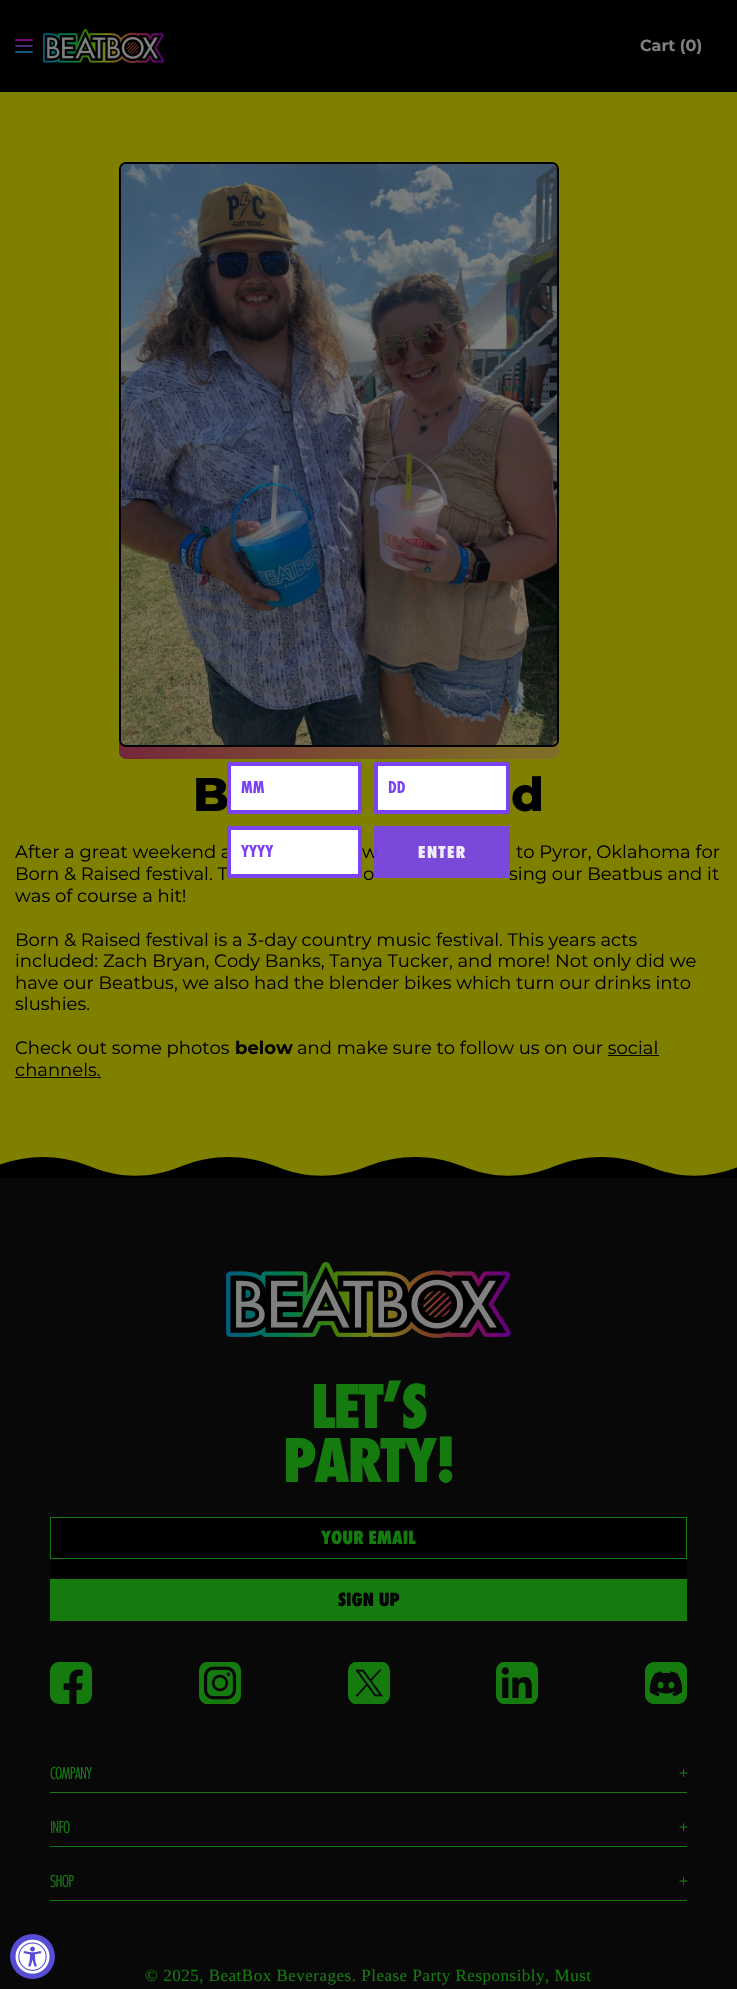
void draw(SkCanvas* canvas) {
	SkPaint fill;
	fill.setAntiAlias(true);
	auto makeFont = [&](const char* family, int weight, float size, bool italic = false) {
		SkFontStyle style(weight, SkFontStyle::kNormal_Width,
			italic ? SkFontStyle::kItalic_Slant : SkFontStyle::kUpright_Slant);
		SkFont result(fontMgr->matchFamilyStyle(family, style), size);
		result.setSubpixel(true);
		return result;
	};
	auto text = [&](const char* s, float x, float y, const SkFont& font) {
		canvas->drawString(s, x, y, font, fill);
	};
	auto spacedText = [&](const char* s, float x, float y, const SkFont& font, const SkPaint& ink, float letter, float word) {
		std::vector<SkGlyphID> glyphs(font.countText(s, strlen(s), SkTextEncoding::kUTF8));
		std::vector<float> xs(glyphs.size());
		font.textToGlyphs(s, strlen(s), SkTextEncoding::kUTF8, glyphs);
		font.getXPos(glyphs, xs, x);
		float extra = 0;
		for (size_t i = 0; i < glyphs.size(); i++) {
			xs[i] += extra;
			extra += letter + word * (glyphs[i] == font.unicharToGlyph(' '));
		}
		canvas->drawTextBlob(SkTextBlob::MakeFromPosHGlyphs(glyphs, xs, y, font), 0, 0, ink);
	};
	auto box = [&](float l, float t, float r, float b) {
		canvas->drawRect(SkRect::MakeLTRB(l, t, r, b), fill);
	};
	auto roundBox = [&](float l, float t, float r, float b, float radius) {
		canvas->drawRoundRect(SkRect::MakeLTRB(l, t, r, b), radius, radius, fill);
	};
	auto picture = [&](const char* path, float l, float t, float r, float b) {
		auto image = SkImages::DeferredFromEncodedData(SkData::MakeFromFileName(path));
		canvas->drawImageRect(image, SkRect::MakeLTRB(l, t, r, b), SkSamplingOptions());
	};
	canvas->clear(0xFF808000);
	fill.setColor(0xFF000000);
	box(0, 0, 737, 92);
	picture("image0.png", 15, 39, 33, 53);
	picture("image1.png", 43, 29, 164, 63);
	{
		const SkColor colors[] = {0xFF7F6D28, 0xFF75263B};
		const float stops[] = {0.1f, 0.99f};
		const SkPoint ends[] = {{564, 470}, {114, 463}};
		fill.setShader(SkGradientShader::MakeLinear(ends, colors, stops, 2, SkTileMode::kClamp));
		fill.setAlpha(255);
	}
	roundBox(119, 174, 559, 759, 7);
	fill.setStyle(SkPaint::kStroke_Style);
	fill.setStrokeWidth(2);
	fill.setShader(nullptr);
	fill.setColor(0xFF000000);
	canvas->drawRoundRect(SkRect::MakeLTRB(120, 163, 558, 746), 6, 6, fill);
	picture("image2.png", 121, 164, 557, 745);
	fill.setStyle(SkPaint::kFill_Style);
	box(608, 1055, 659, 1056);
	box(15, 1077, 101, 1078);
	canvas->save();
	canvas->clipRect(SkRect::MakeLTRB(0, 1154, 737, 1178));
	canvas->drawPath(SkPathBuilder().moveTo(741, 1166).cubicTo(710, 1179, 679, 1179, 648, 1166).cubicTo(617, 1154, 586, 1154, 555, 1166).cubicTo(524, 1179, 493, 1179, 462, 1166).cubicTo(431, 1154, 400, 1154, 368, 1166).cubicTo(337, 1179, 306, 1179, 275, 1166).cubicTo(244, 1154, 213, 1154, 182, 1166).cubicTo(151, 1179, 120, 1179, 89, 1166).cubicTo(58, 1154, 27, 1154, -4, 1166).lineTo(-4, 1180).lineTo(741, 1180).close().detach(), fill);
	canvas->restore();
	fill.setColor(0xFFFFFFFF);
	canvas->drawRect(SkRect::MakeLTRB(376, 764, 508, 812), fill);
	fill.setStyle(SkPaint::kStroke_Style);
	fill.setStrokeWidth(4);
	fill.setColor(0xFF7A42F2);
	canvas->drawRect(SkRect::MakeLTRB(376, 764, 508, 812), fill);
	fill.setStyle(SkPaint::kFill_Style);
	fill.setColor(0xFF080808);
	box(0, 1178, 737, 1989);
	fill.setColor(0xFF574CD5);
	canvas->drawCircle(32.5f, 1956.5f, 22.5f, fill);
	picture("image3.png", 15, 1939, 50, 1974);
	picture("image4.png", 226, 1262, 511, 1338);
	fill.setColor(0xFF000000);
	box(50, 1518, 687, 1579);
	fill.setStyle(SkPaint::kStroke_Style);
	fill.setStrokeWidth(1);
	fill.setColor(0xFF157B0F);
	canvas->drawRect(SkRect::MakeLTRB(50.5f, 1517.5f, 686.5f, 1558.5f), fill);
	fill.setStyle(SkPaint::kFill_Style);
	box(50, 1579, 687, 1621);
	picture("image5.png", 50, 1662, 92, 1704);
	picture("image6.png", 199, 1662, 241, 1704);
	picture("image7.png", 348, 1662, 390, 1704);
	picture("image8.png", 496, 1662, 538, 1704);
	picture("image9.png", 645, 1662, 687, 1704);
	box(50, 1792, 687, 1793);
	box(50, 1846, 687, 1847);
	box(50, 1900, 687, 1901);
	auto font1 = makeFont("Montserrat", 700, 16);
	fill.setColor(0xFF808080);
	text("Cart (0)", 640, 51, font1);
	auto font2 = makeFont("Montserrat", 800, 47);
	fill.setColor(0xFF000000);
	text("B", 193, 811, font2);
	text("d", 511, 811, font2);
	auto font3 = makeFont("Montserrat", 100, 18);
	text("After a great weekend a", 15, 858, font3);
	text("w", 362, 858, font3);
	text("to Pyror, Oklahoma for", 516, 858, font3);
	text("Born & Raised festival. T", 15, 880, font3);
	text("o", 363, 880, font3);
	text("sing our Beatbus and it", 509, 880, font3);
	text("was of course a hit!", 15, 902, font3);
	text("Born & Raised festival is a 3-day country music festival. This years acts", 15, 946, font3);
	text("included: Zach Bryan, Cody Banks, Tanya Tucker, and more! Not only did we", 15, 967, font3);
	text("have our Beatbus, we also had the blender bikes which turn our drinks into", 15, 989, font3);
	text("slushies.", 15, 1010, font3);
	text("Check out some photos", 15, 1054, font3);
	auto font4 = makeFont("Montserrat", 700, 18);
	text("below", 235, 1054, font4);
	text("and make sure to follow us on our social", 297, 1054, font3);
	text("channels.", 15, 1076, font3);
	fill.setColor(0xFFFFFFFF);
	canvas->drawRect(SkRect::MakeLTRB(229, 764, 360, 812), fill);
	fill.setStyle(SkPaint::kStroke_Style);
	fill.setStrokeWidth(4);
	fill.setColor(0xFF7A42F2);
	canvas->drawRect(SkRect::MakeLTRB(229, 764, 360, 812), fill);
	auto font5 = makeFont("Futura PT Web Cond", 700, 18);
	fill.setStyle(SkPaint::kFill_Style);
	text("MM", 241, 793, font5);
	text("DD", 388, 793, font5);
	fill.setColor(0xFFFFFFFF);
	canvas->drawRect(SkRect::MakeLTRB(229, 828, 360, 876), fill);
	fill.setStyle(SkPaint::kStroke_Style);
	fill.setColor(0xFF7A42F2);
	canvas->drawRect(SkRect::MakeLTRB(229, 828, 360, 876), fill);
	fill.setStyle(SkPaint::kFill_Style);
	text("YYYY", 241, 857, font5);
	fill.setColor(0xE67A42F2);
	box(374, 826, 510, 878);
	auto font6 = makeFont("Futura PT Web Cond", 800, 18);
	fill.setColor(0xFFF1ECFB);
	spacedText("ENTER", 418, 858, font6, fill, 1.5f, 0);
	auto font7 = makeFont("Futura PT Web Cond", 800, 66);
	fill.setColor(0xFF157B0F);
	spacedText("LET’S", 311, 1428, font7, fill, -2, 0);
	spacedText("PARTY!", 283, 1482, font7, fill, -2, 0);
	auto font8 = makeFont("Futura PT Web Cond", 800, 20);
	text("YOUR EMAIL", 321, 1544, font8);
	fill.setColor(0xFF000000);
	text("SIGN UP", 338, 1606, font8);
	auto font9 = makeFont("Futura PT Web Cond", 400, 18);
	fill.setColor(0xFF157B0F);
	spacedText("COMPANY", 50, 1779, font9, fill, -0.75f, 0);
	spacedText("+", 679, 1779, font9, fill, -0.75f, 0);
	spacedText("INFO", 50, 1833, font9, fill, -0.75f, 0);
	spacedText("+", 679, 1833, font9, fill, -0.75f, 0);
	spacedText("SHOP", 50, 1887, font9, fill, -0.75f, 0);
	spacedText("+", 679, 1887, font9, fill, -0.75f, 0);
	auto font10 = makeFont("Liberation Serif", 400, 17);
	spacedText("© 2025, BeatBox Beverages. Please Party Responsibly, Must", 145, 1981, font10, fill, 0.5f, 0);
}
